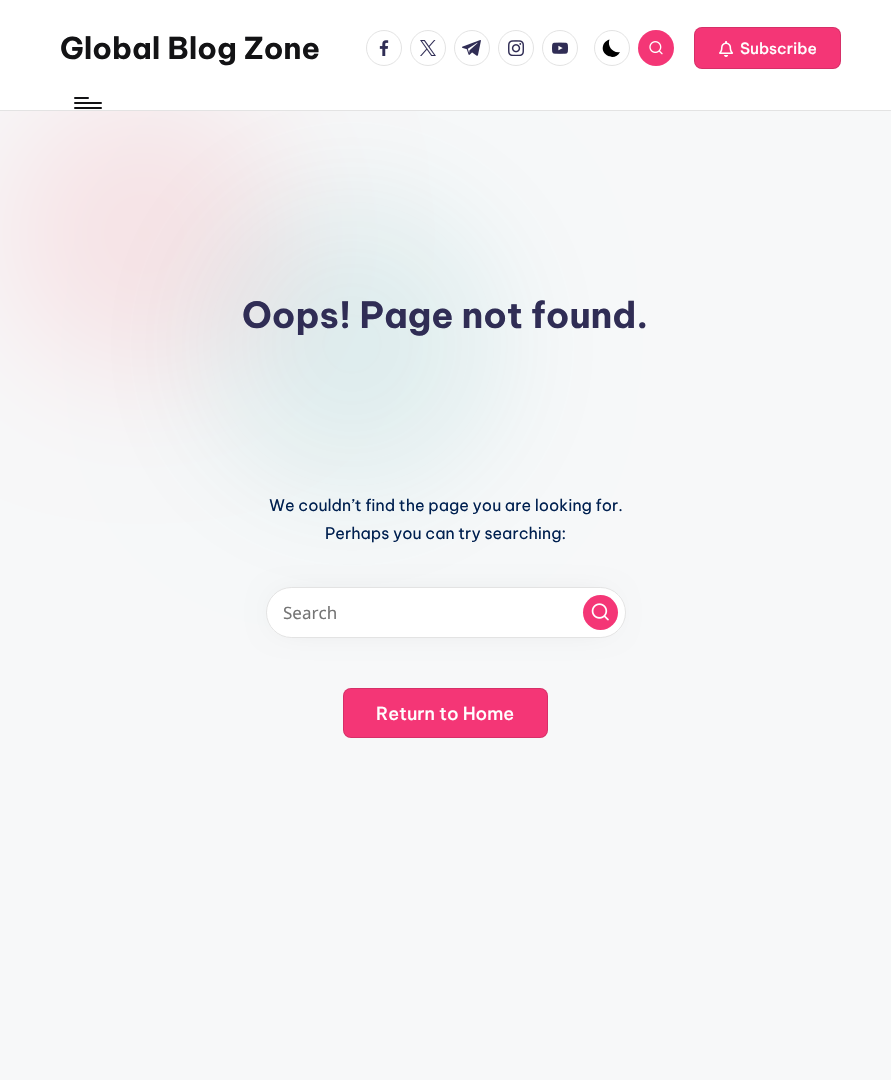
void draw(SkCanvas* canvas) {
	SkPaint fill;
	fill.setAntiAlias(true);
	auto makeFont = [&](const char* family, int weight, float size, bool italic = false) {
		SkFontStyle style(weight, SkFontStyle::kNormal_Width,
			italic ? SkFontStyle::kItalic_Slant : SkFontStyle::kUpright_Slant);
		SkFont result(fontMgr->matchFamilyStyle(family, style), size);
		result.setSubpixel(true);
		return result;
	};
	auto text = [&](const char* s, float x, float y, const SkFont& font) {
		canvas->drawString(s, x, y, font, fill);
	};
	auto box = [&](float l, float t, float r, float b) {
		canvas->drawRect(SkRect::MakeLTRB(l, t, r, b), fill);
	};
	auto roundBox = [&](float l, float t, float r, float b, float radius) {
		canvas->drawRoundRect(SkRect::MakeLTRB(l, t, r, b), radius, radius, fill);
	};
	auto picture = [&](const char* path, float l, float t, float r, float b) {
		auto image = SkImages::DeferredFromEncodedData(SkData::MakeFromFileName(path));
		canvas->drawImageRect(image, SkRect::MakeLTRB(l, t, r, b), SkSamplingOptions());
	};
	canvas->clear(0xFFF7F8F9);
	fill.setColor(0xFFF7E3E6);
	fill.setMaskFilter(SkMaskFilter::MakeBlur(kNormal_SkBlurStyle, 64));
	canvas->drawRoundRect(SkRect::MakeLTRB(0, 90, 288, 378), 144, 144, fill);
	fill.setMaskFilter(nullptr);
	fill.setColor(0x1A04868B);
	fill.setMaskFilter(SkMaskFilter::MakeBlur(kNormal_SkBlurStyle, 64));
	canvas->drawRoundRect(SkRect::MakeLTRB(208, 200, 496, 488), 144, 144, fill);
	fill.setMaskFilter(nullptr);
	fill.setColor(0xFFFFFFFF);
	box(0, 0, 891, 110);
	fill.setColor(0xFFE3E3E3);
	box(0, 110, 891, 111);
	fill.setStyle(SkPaint::kStroke_Style);
	fill.setStrokeWidth(1);
	canvas->drawCircle(384, 48, 17.5f, fill);
	picture("image0.png", 379, 40, 389, 56);
	canvas->drawCircle(428, 48, 17.5f, fill);
	picture("image1.png", 420, 40, 436, 56);
	canvas->drawCircle(472, 48, 17.5f, fill);
	picture("image2.png", 462, 40, 481, 56);
	canvas->drawCircle(516, 48, 17.5f, fill);
	picture("image3.png", 508, 40, 524, 56);
	canvas->drawCircle(560, 48, 17.5f, fill);
	picture("image4.png", 552, 42, 568, 54);
	canvas->drawCircle(612, 48, 17.5f, fill);
	fill.setStyle(SkPaint::kFill_Style);
	fill.setColor(0xFF000000);
	canvas->drawPath(SkPathBuilder().moveTo(620, 52).cubicTo(613, 53.5f, 607, 46.5f, 609.5f, 39.5f).cubicTo(607.5f, 40, 605.5f, 41.5f, 604, 43.5f).cubicTo(598, 54.5f, 615, 62.5f, 620, 52).close().detach(), fill);
	fill.setColor(0xFFF43676);
	canvas->drawCircle(656, 48, 18, fill);
	picture("image5.png", 649, 41, 663, 55);
	roundBox(694, 27, 841, 69, 8);
	fill.setStyle(SkPaint::kStroke_Style);
	fill.setColor(0x1F000000);
	canvas->drawRoundRect(SkRect::MakeLTRB(694.5f, 27.5f, 840.5f, 68.5f), 7.5f, 7.5f, fill);
	picture("image6.png", 719, 41, 733, 57);
	fill.setStyle(SkPaint::kFill_Style);
	fill.setColor(0xFF131315);
	roundBox(74, 102, 102, 104, 1);
	roundBox(74, 97, 89, 99, 1);
	roundBox(74, 107, 102, 109, 1);
	fill.setColor(0x26000000);
	fill.setMaskFilter(SkMaskFilter::MakeBlur(kNormal_SkBlurStyle, 16));
	canvas->drawRoundRect(SkRect::MakeLTRB(279, 603, 607, 622), 9.5f, 9.5f, fill);
	fill.setMaskFilter(nullptr);
	fill.setColor(0xFFFFFFFF);
	roundBox(266, 587, 626, 638, 25.5f);
	fill.setStyle(SkPaint::kStroke_Style);
	fill.setColor(0x66B9B9B9);
	canvas->drawRoundRect(SkRect::MakeLTRB(266.5f, 587.5f, 625.5f, 637.5f), 25, 25, fill);
	fill.setStyle(SkPaint::kFill_Style);
	fill.setColor(0xFFF43676);
	canvas->drawCircle(600.5f, 612.5f, 17.5f, fill);
	picture("image7.png", 591, 603, 609, 621);
	roundBox(343, 688, 548, 738, 8);
	fill.setStyle(SkPaint::kStroke_Style);
	fill.setColor(0x1F000000);
	canvas->drawRoundRect(SkRect::MakeLTRB(343.5f, 688.5f, 547.5f, 737.5f), 7.5f, 7.5f, fill);
	auto font1 = makeFont("Be Vietnam Pro", 700, 30);
	fill.setStyle(SkPaint::kFill_Style);
	fill.setColor(0xFF131315);
	text("Global Blog Zone", 60, 59, font1);
	auto font2 = makeFont("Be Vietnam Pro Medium", 500, 15.5f);
	fill.setColor(0xFFFFFFFF);
	text("Subscribe", 740, 54, font2);
	auto font3 = makeFont("Be Vietnam Pro", 700, 36);
	fill.setColor(0xFF302D55);
	text("Oops! Page not found.", 242, 328, font3);
	auto font4 = makeFont("Be Vietnam Pro", 400, 16);
	fill.setColor(0xFF002050);
	text("We couldn’t find the page you are looking for.", 269, 511, font4);
	text("Perhaps you can try searching:", 325, 539, font4);
	auto font5 = makeFont("Noto Sans", 400, 17);
	fill.setColor(0xFF757575);
	text("Search", 283, 619, font5);
	auto font6 = makeFont("Be Vietnam Pro Medium", 500, 18);
	fill.setColor(0xFFFFFFFF);
	text("Return to Home", 376, 720, font6);
}
